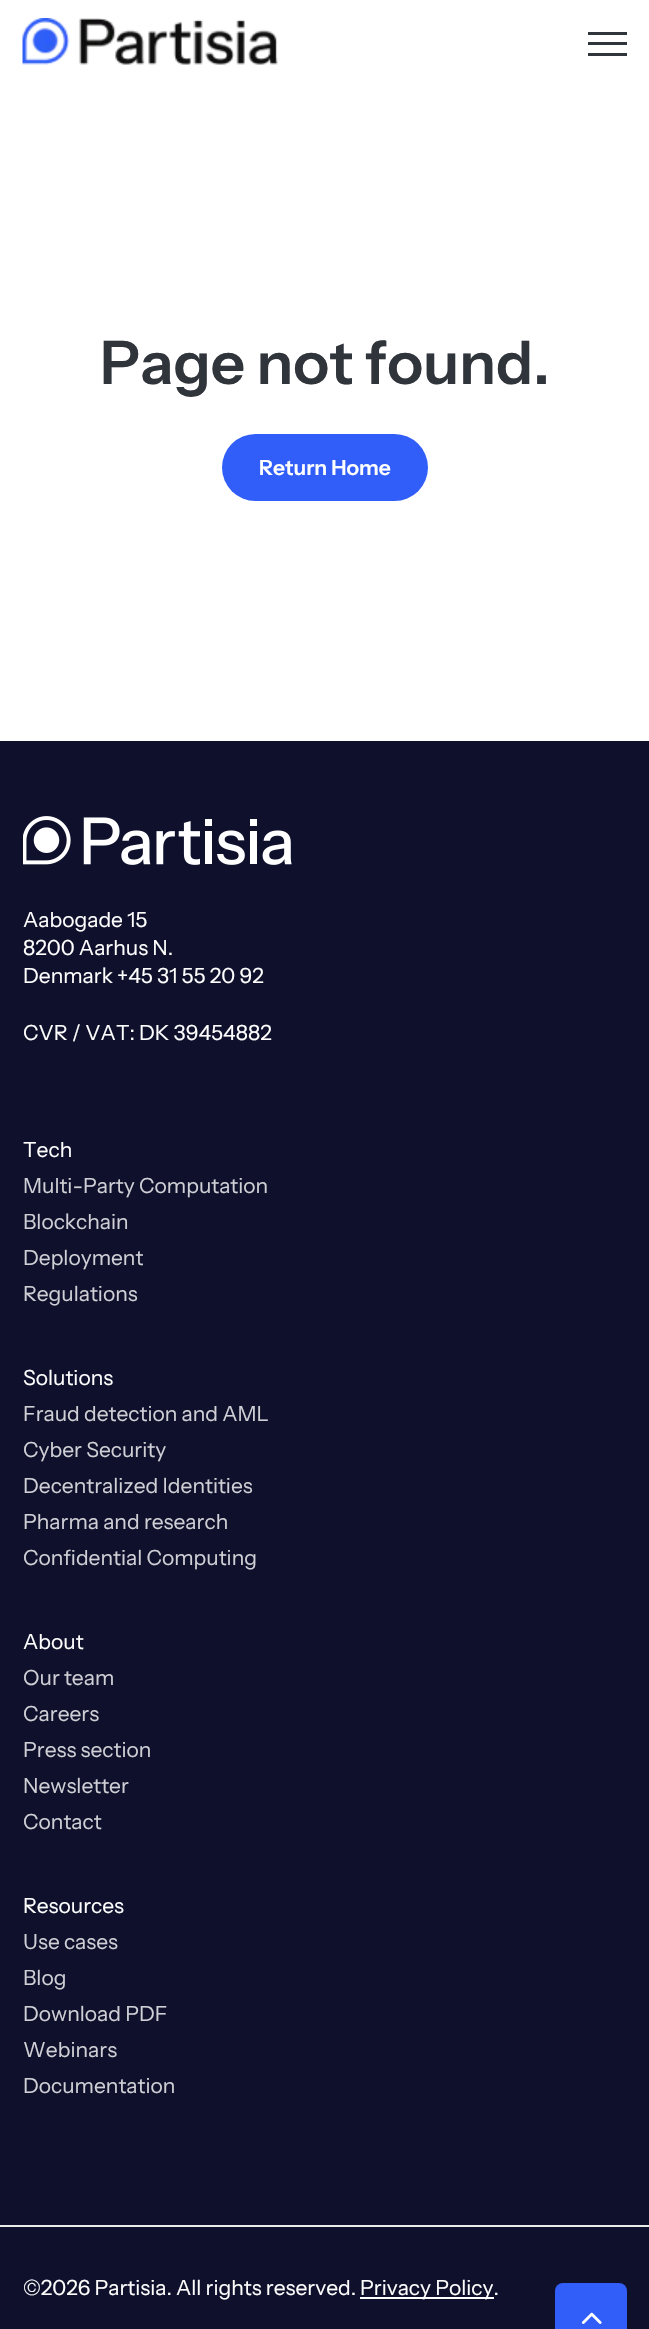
void draw(SkCanvas* canvas) {
	SkPaint fill;
	fill.setAntiAlias(true);
	auto makeFont = [&](const char* family, int weight, float size, bool italic = false) {
		SkFontStyle style(weight, SkFontStyle::kNormal_Width,
			italic ? SkFontStyle::kItalic_Slant : SkFontStyle::kUpright_Slant);
		SkFont result(fontMgr->matchFamilyStyle(family, style), size);
		result.setSubpixel(true);
		return result;
	};
	auto text = [&](const char* s, float x, float y, const SkFont& font) {
		canvas->drawString(s, x, y, font, fill);
	};
	auto box = [&](float l, float t, float r, float b) {
		canvas->drawRect(SkRect::MakeLTRB(l, t, r, b), fill);
	};
	auto roundBox = [&](float l, float t, float r, float b, float radius) {
		canvas->drawRoundRect(SkRect::MakeLTRB(l, t, r, b), radius, radius, fill);
	};
	auto picture = [&](const char* path, float l, float t, float r, float b) {
		auto image = SkImages::DeferredFromEncodedData(SkData::MakeFromFileName(path));
		canvas->drawImageRect(image, SkRect::MakeLTRB(l, t, r, b), SkSamplingOptions());
	};
	canvas->clear(0xFFFFFFFF);
	picture("image0.png", 22, 18, 278, 65);
	fill.setColor(0xFF30343B);
	box(588, 32, 627, 35);
	box(588, 42, 627, 45);
	box(588, 53, 627, 56);
	fill.setColor(0xFF315DF8);
	roundBox(222, 434, 428, 501, 33.5f);
	fill.setColor(0xFF0F112C);
	box(0, 741, 649, 2329);
	fill.setColor(0xFFEBEBEB);
	box(0, 2225, 649, 2227);
	picture("image1.png", 23, 816, 292, 865);
	fill.setColor(0xFFFFFFFF);
	box(360, 2297, 494, 2299);
	fill.setColor(0xFF315DF8);
	roundBox(555, 2283, 627, 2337, 8);
	picture("image2.png", 581, 2312, 602, 2324);
	auto font1 = makeFont("Instrument Sans", 600, 60);
	fill.setColor(0xFF30343B);
	text("Page not found.", 100, 384, font1);
	auto font2 = makeFont("Instrument Sans", 600, 21);
	fill.setColor(0xFFFFFFFF);
	text("Return Home", 259, 475, font2);
	auto font3 = makeFont("Instrument Sans", 400, 21);
	text("Aabogade 15", 23, 927, font3);
	text("8200 Aarhus N.", 23, 955, font3);
	text("Denmark +45 31 55 20 92", 23, 983, font3);
	text("CVR / VAT: DK 39454882", 23, 1040, font3);
	text("Tech", 23, 1157, font3);
	fill.setColor(0xFFCFCFD5);
	text("Multi-Party Computation", 23, 1193, font3);
	text("Blockchain", 23, 1229, font3);
	text("Deployment", 23, 1265, font3);
	text("Regulations", 23, 1301, font3);
	fill.setColor(0xFFFFFFFF);
	text("Solutions", 23, 1385, font3);
	fill.setColor(0xFFCFCFD5);
	text("Fraud detection and AML", 23, 1421, font3);
	text("Cyber Security", 23, 1457, font3);
	text("Decentralized Identities", 23, 1493, font3);
	text("Pharma and research", 23, 1529, font3);
	text("Confidential Computing", 23, 1565, font3);
	fill.setColor(0xFFFFFFFF);
	text("About", 23, 1649, font3);
	fill.setColor(0xFFCFCFD5);
	text("Our team", 23, 1685, font3);
	text("Careers", 23, 1721, font3);
	text("Press section", 23, 1757, font3);
	text("Newsletter", 23, 1793, font3);
	text("Contact", 23, 1829, font3);
	fill.setColor(0xFFFFFFFF);
	text("Resources", 23, 1913, font3);
	fill.setColor(0xFFCFCFD5);
	text("Use cases", 23, 1949, font3);
	text("Blog", 23, 1985, font3);
	text("Download PDF", 23, 2021, font3);
	text("Webinars", 23, 2057, font3);
	text("Documentation", 23, 2093, font3);
	fill.setColor(0xFFFFFFFF);
	text("©2026 Partisia. All rights reserved.", 23, 2295, font3);
	text("Privacy Policy.", 360, 2295, font3);
}
